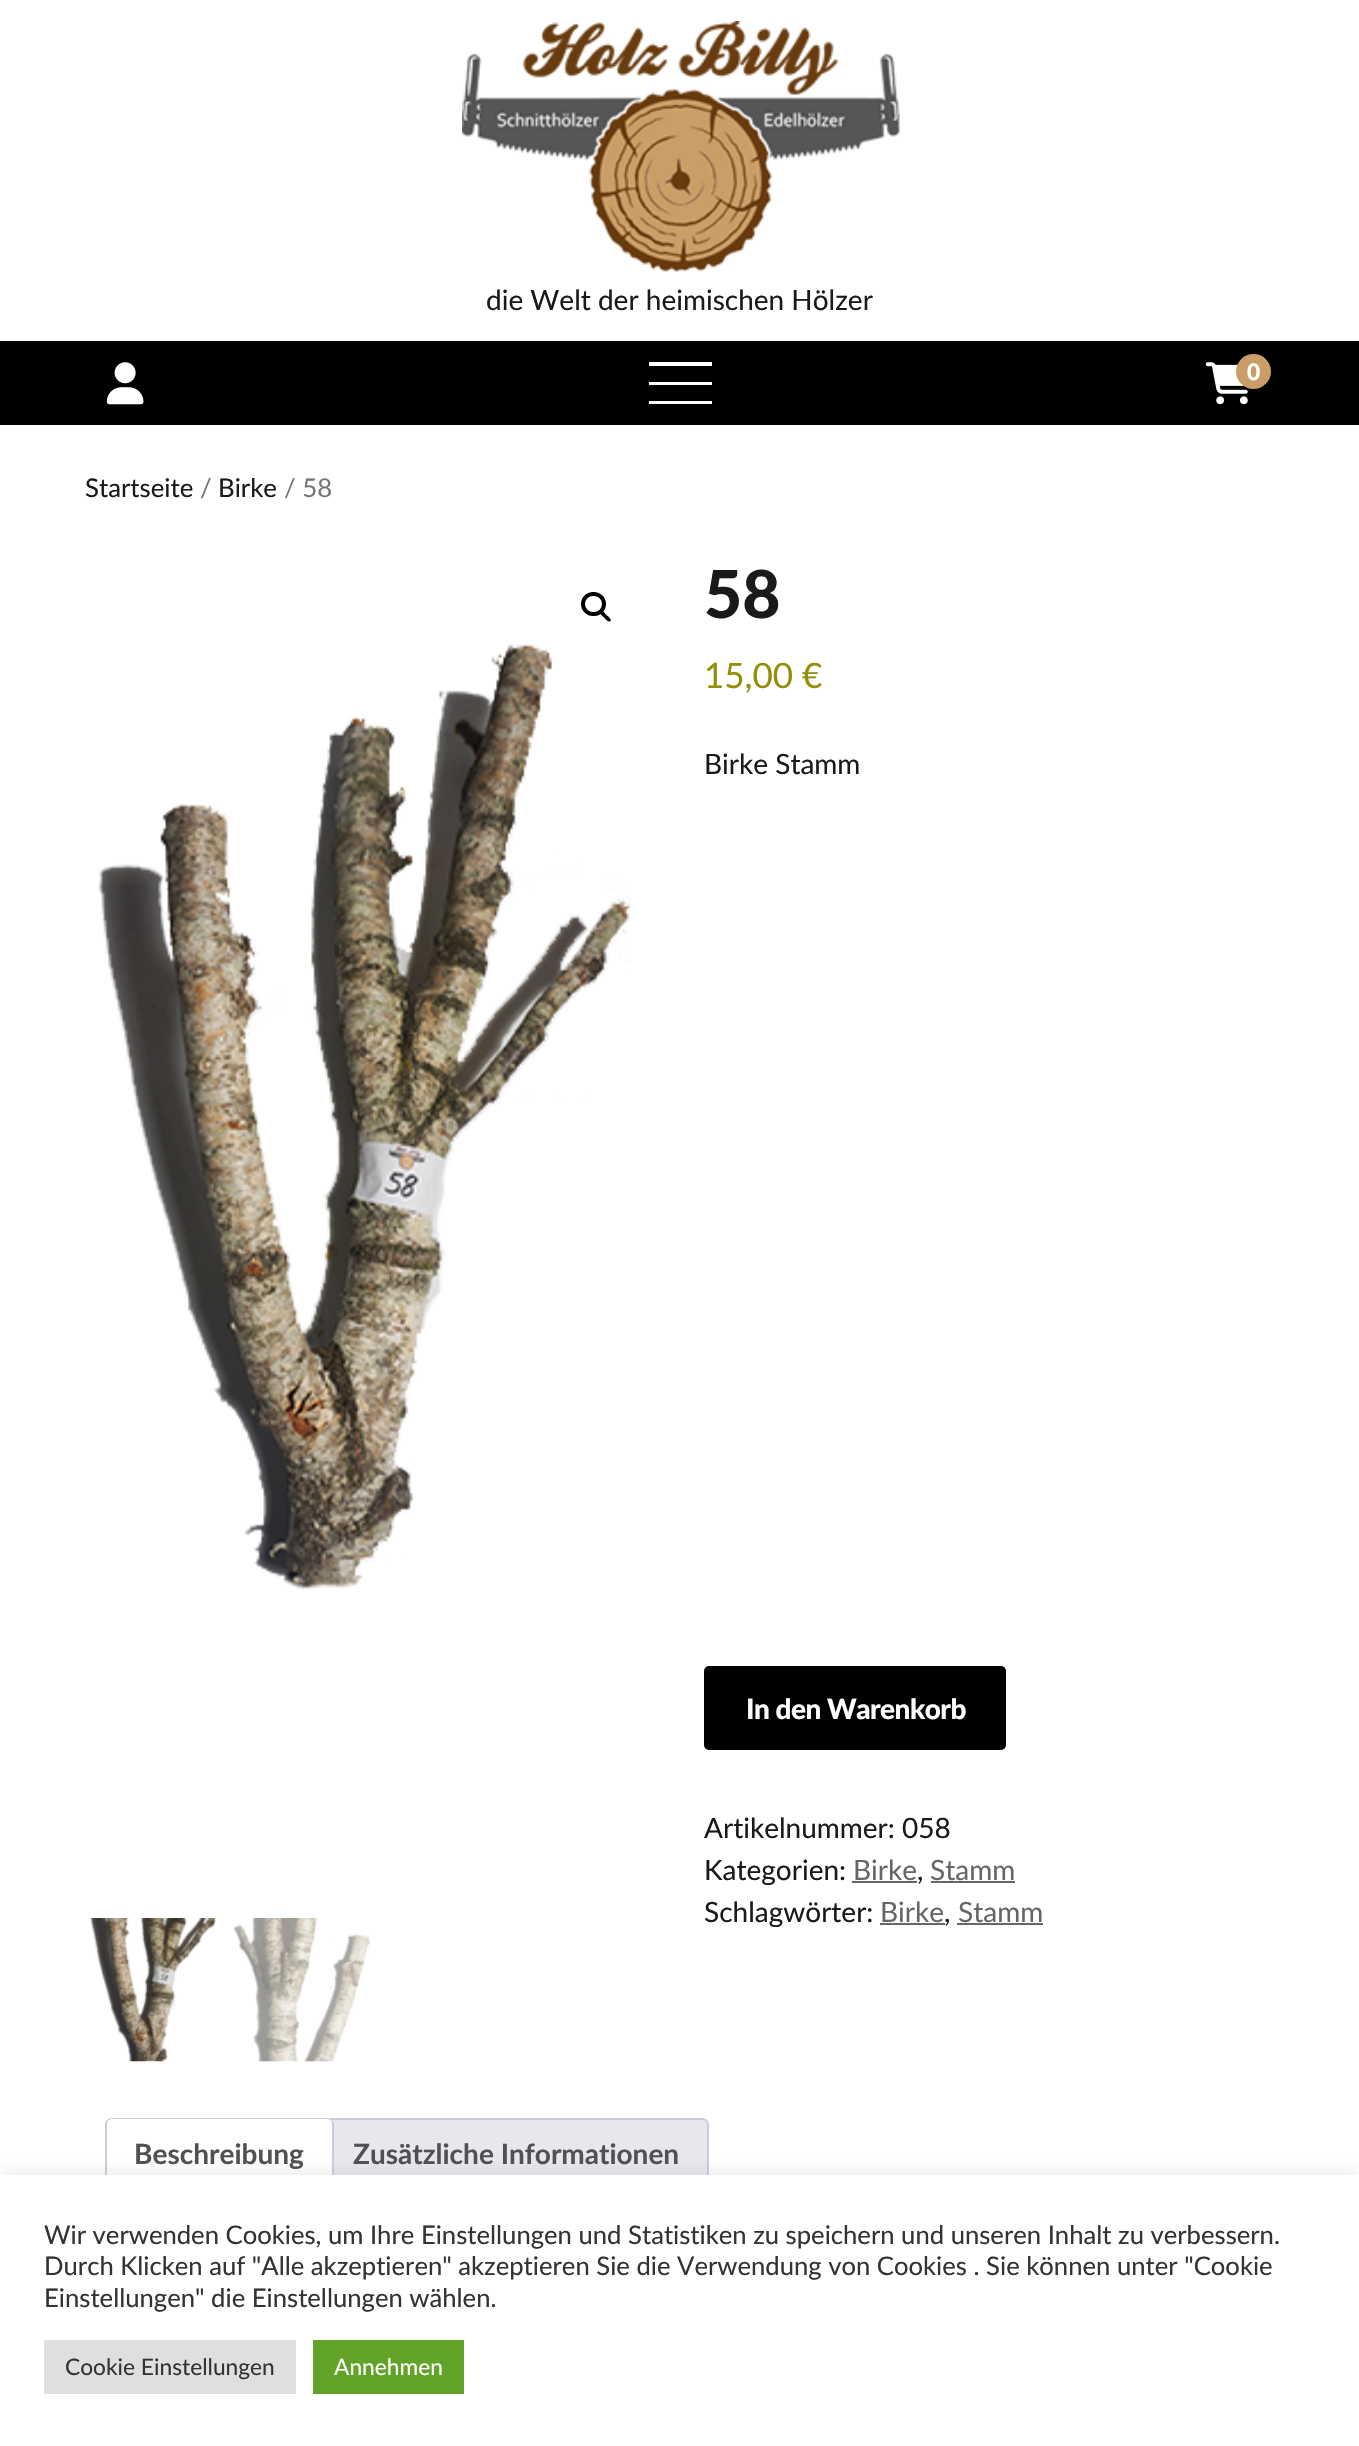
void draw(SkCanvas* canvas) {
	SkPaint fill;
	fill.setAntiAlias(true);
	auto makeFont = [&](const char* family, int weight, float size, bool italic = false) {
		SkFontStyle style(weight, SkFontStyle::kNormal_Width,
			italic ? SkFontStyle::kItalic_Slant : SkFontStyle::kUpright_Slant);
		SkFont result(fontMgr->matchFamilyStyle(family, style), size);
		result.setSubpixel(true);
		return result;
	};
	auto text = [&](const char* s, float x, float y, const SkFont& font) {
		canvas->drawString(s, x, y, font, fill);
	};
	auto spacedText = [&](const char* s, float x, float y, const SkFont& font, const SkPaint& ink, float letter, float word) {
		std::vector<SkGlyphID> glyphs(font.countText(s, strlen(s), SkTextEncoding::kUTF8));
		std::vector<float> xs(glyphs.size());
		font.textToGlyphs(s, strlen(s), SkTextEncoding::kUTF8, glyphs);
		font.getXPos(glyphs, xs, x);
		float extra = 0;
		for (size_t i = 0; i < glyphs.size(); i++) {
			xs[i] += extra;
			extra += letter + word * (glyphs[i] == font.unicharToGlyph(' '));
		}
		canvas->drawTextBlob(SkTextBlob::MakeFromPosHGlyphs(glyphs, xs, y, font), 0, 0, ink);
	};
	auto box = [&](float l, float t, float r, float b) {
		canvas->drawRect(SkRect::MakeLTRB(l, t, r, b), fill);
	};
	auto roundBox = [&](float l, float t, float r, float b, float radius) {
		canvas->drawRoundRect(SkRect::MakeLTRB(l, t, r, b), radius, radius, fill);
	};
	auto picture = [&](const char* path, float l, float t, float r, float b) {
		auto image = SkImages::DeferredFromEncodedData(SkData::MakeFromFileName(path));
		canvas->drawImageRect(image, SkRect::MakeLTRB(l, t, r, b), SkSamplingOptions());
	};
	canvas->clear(0xFFFFFFFF);
	picture("image0.png", 462, 21, 900, 272);
	fill.setColor(0xFF000000);
	box(0, 341, 1359, 425);
	picture("image1.png", 106, 362, 144, 405);
	fill.setColor(0xFFFFFFFF);
	box(649, 401, 712, 404);
	box(649, 382, 712, 385);
	box(649, 362, 712, 366);
	picture("image2.png", 1205, 362, 1248, 405);
	fill.setColor(0xFFCA9E67);
	canvas->drawCircle(1253.5f, 371.5f, 17.5f, fill);
	fill.setStyle(SkPaint::kStroke_Style);
	fill.setStrokeWidth(4);
	fill.setColor(0xFF000000);
	canvas->drawRoundRect(SkRect::MakeLTRB(583, 594, 604, 614), 10, 10, fill);
	fill.setStyle(SkPaint::kFill_Style);
	canvas->drawPath(SkPathBuilder().moveTo(600.5f, 611).cubicTo(602.5f, 609, 605.5f, 614, 606.5f, 615).cubicTo(607.5f, 616, 612, 619, 610.5f, 621).cubicTo(608.5f, 623, 605, 618.5f, 604, 617.5f).cubicTo(603, 616.5f, 598.5f, 613, 600.5f, 611).close().detach(), fill);
	picture("image3.png", 98, 643, 632, 1590);
	picture("image4.png", 90, 1918, 217, 2062);
	picture("image5.png", 233, 1918, 371, 2062);
	roundBox(704, 1666, 1006, 1750, 5);
	fill.setColor(0xFF666666);
	box(852, 1881, 917, 1883);
	box(931, 1881, 1015, 1883);
	box(880, 1923, 945, 1925);
	box(957, 1923, 1043, 1925);
	fill.setColor(0xFFE9E6ED);
	canvas->drawPath(SkPathBuilder().moveTo(331, 2119).lineTo(702, 2119).cubicTo(705.5f, 2119, 708, 2121.5f, 708, 2125).lineTo(708, 2190).lineTo(325, 2190).lineTo(325, 2125).cubicTo(325, 2121.5f, 327.5f, 2119, 331, 2119).close().detach(), fill);
	fill.setStyle(SkPaint::kStroke_Style);
	fill.setStrokeWidth(2);
	fill.setColor(0xFFCFC8D8);
	canvas->drawPath(SkPathBuilder().moveTo(331, 2119).lineTo(702, 2119).cubicTo(705.5f, 2119, 708, 2121.5f, 708, 2125).lineTo(708, 2190).lineTo(325, 2190).lineTo(325, 2125).cubicTo(325, 2121.5f, 327.5f, 2119, 331, 2119).close().detach(), fill);
	fill.setStyle(SkPaint::kFill_Style);
	fill.setColor(0xFFFFFFFF);
	canvas->drawPath(SkPathBuilder().moveTo(112, 2118).lineTo(327, 2118).cubicTo(331, 2118, 334, 2121, 334, 2125).lineTo(334, 2191).lineTo(105, 2191).lineTo(105, 2125).cubicTo(105, 2121, 108, 2118, 112, 2118).close().detach(), fill);
	fill.setColor(0xFFCFC8D8);
	canvas->drawPath(SkPathBuilder().moveTo(112, 2118).cubicTo(110, 2118, 108, 2119, 107, 2120).lineTo(108, 2121).cubicTo(109, 2120, 110, 2119, 112, 2119).lineTo(327, 2119).cubicTo(329, 2119, 330, 2120, 331, 2121).lineTo(332, 2120).cubicTo(331, 2119, 329, 2118, 327, 2118).close().detach(), fill);
	canvas->drawPath(SkPathBuilder().moveTo(334, 2191).lineTo(334, 2123).lineTo(332, 2120).lineTo(331, 2121).cubicTo(332, 2122, 332, 2123, 332, 2124).lineTo(332, 2189).close().detach(), fill);
	canvas->drawPath(SkPathBuilder().moveTo(105, 2191).lineTo(107, 2189).lineTo(107, 2124).cubicTo(107, 2123, 107, 2122, 108, 2121).lineTo(107, 2120).cubicTo(106, 2121, 105, 2122, 105, 2124).close().detach(), fill);
	fill.setColor(0x4DACABAB);
	fill.setMaskFilter(SkMaskFilter::MakeBlur(kNormal_SkBlurStyle, 9));
	canvas->drawRect(SkRect::MakeLTRB(0, 2174, 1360, 2445), fill);
	fill.setMaskFilter(nullptr);
	fill.setColor(0xFFFFFFFF);
	box(0, 2175, 1359, 2446);
	fill.setColor(0xFFDEDFE0);
	box(44, 2340, 296, 2394);
	fill.setColor(0xFF61A229);
	box(313, 2340, 464, 2394);
	auto font1 = makeFont("Lato", 400, 28);
	fill.setColor(0xFF1A1A1A);
	text("die Welt der heimischen Hölzer", 486, 310, font1);
	auto font2 = makeFont("Lato", 900, 22.75f);
	fill.setColor(0xFFFFFFFF);
	text("0", 1247, 380, font2);
	auto font3 = makeFont("Lato", 400, 25.75f);
	fill.setColor(0xFF1A1A1A);
	text("Startseite", 85, 497, font3);
	fill.setColor(0xFF767676);
	text("/", 200, 497, font3);
	fill.setColor(0xFF1A1A1A);
	text("Birke", 218, 497, font3);
	fill.setColor(0xFF767676);
	text("/ 58", 284, 497, font3);
	auto font4 = makeFont("Lato", 900, 66);
	fill.setColor(0xFF1A1A1A);
	text("58", 704, 618, font4);
	auto font5 = makeFont("Lato", 400, 35);
	fill.setColor(0xFF958E09);
	text("15,00 €", 704, 688, font5);
	fill.setColor(0xFF1A1A1A);
	text("Birke Stamm", 704, 774, font1);
	auto font6 = makeFont("Lato", 900, 28);
	fill.setColor(0xFFFFFFFF);
	spacedText("In den Warenkorb", 746, 1719, font6, fill, -0.5f, 0);
	fill.setColor(0xFF1A1A1A);
	text("Artikelnummer: 058", 704, 1838, font1);
	text("Kategorien:", 704, 1880, font1);
	fill.setColor(0xFF666666);
	text("Birke", 853, 1880, font1);
	fill.setColor(0xFF1A1A1A);
	text(",", 917, 1880, font1);
	fill.setColor(0xFF666666);
	text("Stamm", 930, 1880, font1);
	fill.setColor(0xFF1A1A1A);
	text("Schlagwörter:", 704, 1922, font1);
	fill.setColor(0xFF666666);
	text("Birke", 880, 1922, font1);
	fill.setColor(0xFF1A1A1A);
	text(",", 944, 1922, font1);
	fill.setColor(0xFF666666);
	text("Stamm", 958, 1922, font1);
	auto font7 = makeFont("Lato", 700, 28);
	fill.setColor(0xFF515151);
	text("Beschreibung", 134, 2164, font7);
	text("Zusätzliche Informationen", 353, 2164, font7);
	auto font8 = makeFont("Lato", 400, 25.65f);
	fill.setColor(0xFF333333);
	text("Wir verwenden Cookies, um Ihre Einstellungen und Statistiken zu speichern und unseren Inhalt zu verbessern.", 44, 2244, font8);
	text("Durch Klicken auf \"Alle akzeptieren\" akzeptieren Sie die Verwendung von Cookies . Sie können unter \"Cookie", 44, 2275, font8);
	text("Einstellungen\" die Einstellungen wählen.", 44, 2307, font8);
	auto font9 = makeFont("Lato", 400, 22.75f);
	text("Cookie Einstellungen", 65, 2375, font9);
	fill.setColor(0xFFFFFFFF);
	text("Annehmen", 334, 2375, font9);
}
